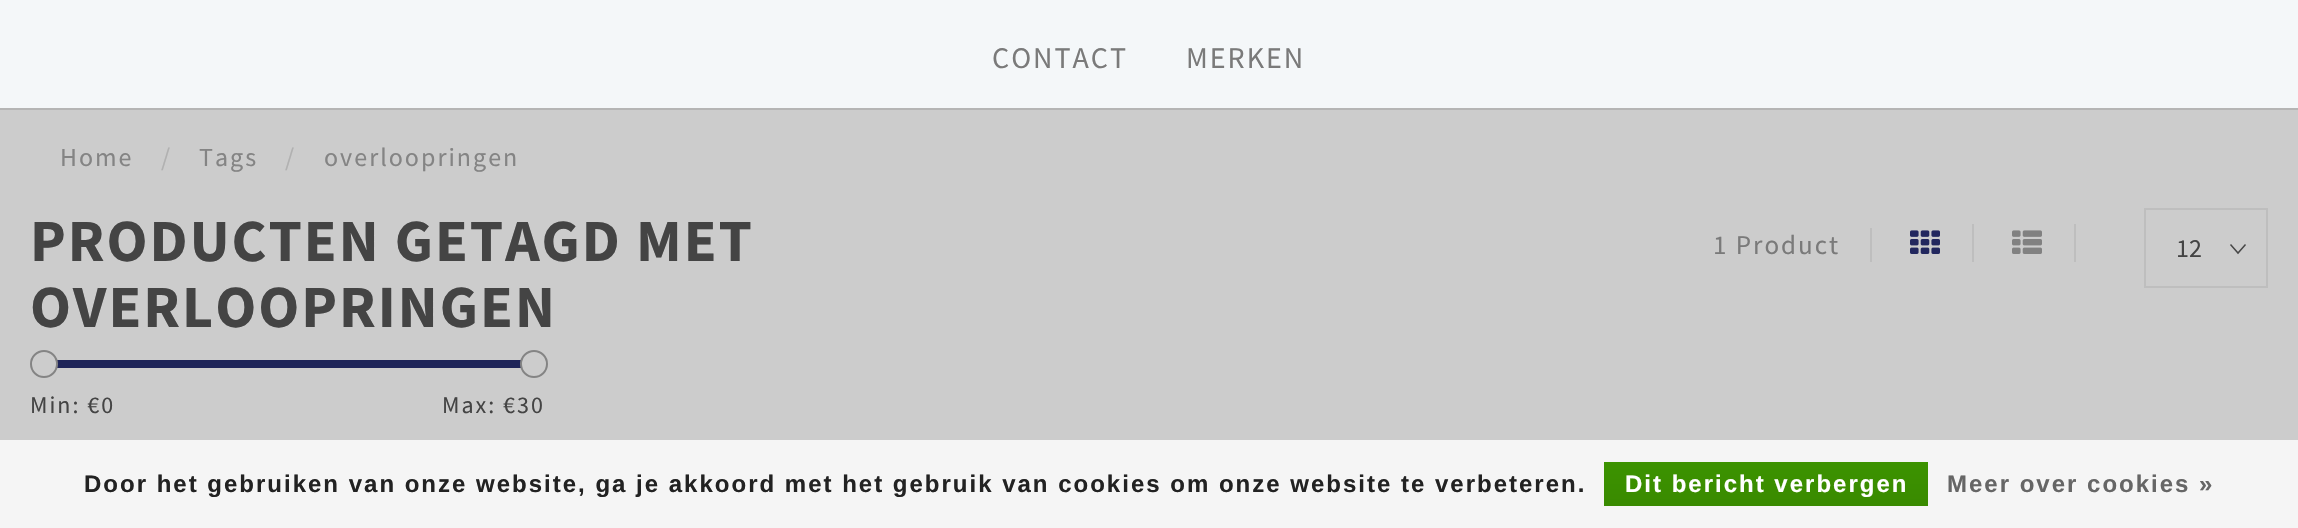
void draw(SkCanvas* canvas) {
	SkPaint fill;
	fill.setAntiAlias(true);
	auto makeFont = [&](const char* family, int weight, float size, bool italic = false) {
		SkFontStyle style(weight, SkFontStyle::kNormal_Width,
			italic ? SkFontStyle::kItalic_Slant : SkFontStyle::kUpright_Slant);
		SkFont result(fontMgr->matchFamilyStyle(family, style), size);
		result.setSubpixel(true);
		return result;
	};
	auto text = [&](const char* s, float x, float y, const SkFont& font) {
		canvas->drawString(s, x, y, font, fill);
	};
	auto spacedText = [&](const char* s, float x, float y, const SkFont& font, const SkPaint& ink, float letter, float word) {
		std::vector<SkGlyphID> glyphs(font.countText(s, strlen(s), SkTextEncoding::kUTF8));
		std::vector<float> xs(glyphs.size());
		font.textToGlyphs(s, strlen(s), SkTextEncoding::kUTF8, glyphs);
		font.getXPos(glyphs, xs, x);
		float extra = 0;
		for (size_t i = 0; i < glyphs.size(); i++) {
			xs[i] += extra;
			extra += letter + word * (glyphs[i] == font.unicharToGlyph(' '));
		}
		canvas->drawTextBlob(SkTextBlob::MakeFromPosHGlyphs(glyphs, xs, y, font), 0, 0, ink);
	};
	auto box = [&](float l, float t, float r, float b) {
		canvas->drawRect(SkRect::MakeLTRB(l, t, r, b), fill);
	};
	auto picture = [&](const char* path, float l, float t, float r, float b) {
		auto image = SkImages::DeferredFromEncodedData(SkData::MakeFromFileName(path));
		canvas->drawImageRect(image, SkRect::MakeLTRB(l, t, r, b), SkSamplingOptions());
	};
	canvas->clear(0xFFCCCCCC);
	fill.setColor(0xFFF4F7F9);
	box(0, 0, 2298, 108);
	fill.setColor(0xFFB5B5B5);
	box(0, 108, 2298, 110);
	fill.setColor(0xFFBEBEBE);
	box(1870, 228, 1872, 262);
	box(1972, 224, 1974, 262);
	picture("image0.png", 1910, 230, 1940, 254);
	box(2074, 224, 2076, 262);
	picture("image1.png", 2012, 230, 2042, 254);
	fill.setStyle(SkPaint::kStroke_Style);
	fill.setStrokeWidth(1.5f);
	fill.setColor(0xFF474747);
	canvas->drawPath(SkPathBuilder().moveTo(2245.5f, 244.5f).lineTo(2238, 253).lineTo(2230.5f, 244.5f).detach(), fill);
	fill.setStrokeWidth(2);
	fill.setColor(0xFFBEBEBE);
	canvas->drawRect(SkRect::MakeLTRB(2145, 209, 2267, 287), fill);
	fill.setStyle(SkPaint::kFill_Style);
	fill.setColor(0xFF1F2559);
	box(50, 360, 521, 368);
	fill.setColor(0xFFCCCCCC);
	canvas->drawCircle(44, 364, 13, fill);
	fill.setStyle(SkPaint::kStroke_Style);
	fill.setColor(0xFF848484);
	canvas->drawCircle(44, 364, 13, fill);
	fill.setStyle(SkPaint::kFill_Style);
	fill.setColor(0xFFCCCCCC);
	canvas->drawCircle(534, 364, 13, fill);
	fill.setStyle(SkPaint::kStroke_Style);
	fill.setColor(0xFF848484);
	canvas->drawCircle(534, 364, 13, fill);
	fill.setStyle(SkPaint::kFill_Style);
	fill.setColor(0xFFF5F5F5);
	box(0, 440, 2298, 528);
	{
		const SkColor colors[] = {0xFF3C9300, 0xFF398A00};
		const float stops[] = {0, 1};
		const SkPoint ends[] = {{1766, 462}, {1766, 506}};
		fill.setShader(SkGradientShader::MakeLinear(ends, colors, stops, 2, SkTileMode::kClamp));
		fill.setAlpha(255);
	}
	box(1604, 462, 1928, 506);
	auto font1 = makeFont("Source Sans Pro", 400, 30);
	fill.setShader(nullptr);
	fill.setColor(0xFF7A7A7A);
	spacedText("CONTACT", 992, 68, font1, fill, 2, 0);
	spacedText("MERKEN", 1186, 68, font1, fill, 2, 0);
	auto font2 = makeFont("Source Sans Pro", 400, 26);
	fill.setColor(0xFF848484);
	spacedText("Home", 60, 166, font2, fill, 2, 0);
	fill.setColor(0xFFB1B1B1);
	spacedText("/", 161, 166, font2, fill, 2, 0);
	fill.setColor(0xFF848484);
	spacedText("Tags", 199, 166, font2, fill, 2, 0);
	fill.setColor(0xFFB1B1B1);
	spacedText("/", 285, 166, font2, fill, 2, 0);
	fill.setColor(0xFF848484);
	spacedText("overloopringen", 324, 166, font2, fill, 2, 0);
	auto font3 = makeFont("Source Sans Pro", 700, 60);
	fill.setColor(0xFF444444);
	spacedText("PRODUCTEN GETAGD MET", 30, 261, font3, fill, 2, 0);
	spacedText("OVERLOOPRINGEN", 30, 327, font3, fill, 2, 0);
	auto font4 = makeFont("Source Sans Pro", 400, 27);
	fill.setColor(0xFF7A7A7A);
	spacedText("1 Product", 1713, 254, font4, fill, 2, 0);
	fill.setColor(0xFF444444);
	text("12", 2176, 257, font2);
	auto font5 = makeFont("Source Sans Pro", 400, 24);
	spacedText("Min: €0", 30, 413, font5, fill, 2, 0);
	spacedText("Max: €30", 442, 413, font5, fill, 2, 0);
	auto font6 = makeFont("Liberation Sans", 700, 24);
	fill.setColor(0xFF222222);
	spacedText("Door het gebruiken van onze website, ga je akkoord met het gebruik van cookies om onze website te verbeteren.", 84, 492, font6, fill, 2, 0);
	fill.setColor(0xFFFFFFFF);
	spacedText("Dit bericht verbergen", 1625, 492, font6, fill, 2, 0);
	fill.setColor(0xFF666666);
	spacedText("Meer over cookies »", 1947, 492, font6, fill, 2, 0);
}
